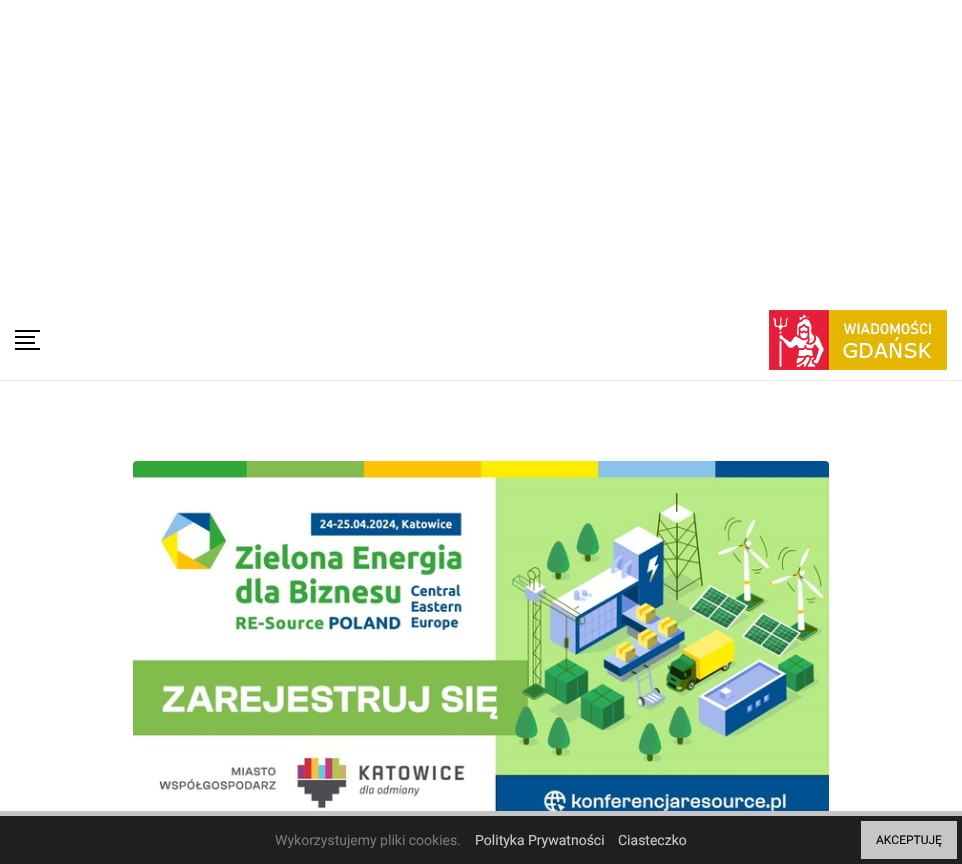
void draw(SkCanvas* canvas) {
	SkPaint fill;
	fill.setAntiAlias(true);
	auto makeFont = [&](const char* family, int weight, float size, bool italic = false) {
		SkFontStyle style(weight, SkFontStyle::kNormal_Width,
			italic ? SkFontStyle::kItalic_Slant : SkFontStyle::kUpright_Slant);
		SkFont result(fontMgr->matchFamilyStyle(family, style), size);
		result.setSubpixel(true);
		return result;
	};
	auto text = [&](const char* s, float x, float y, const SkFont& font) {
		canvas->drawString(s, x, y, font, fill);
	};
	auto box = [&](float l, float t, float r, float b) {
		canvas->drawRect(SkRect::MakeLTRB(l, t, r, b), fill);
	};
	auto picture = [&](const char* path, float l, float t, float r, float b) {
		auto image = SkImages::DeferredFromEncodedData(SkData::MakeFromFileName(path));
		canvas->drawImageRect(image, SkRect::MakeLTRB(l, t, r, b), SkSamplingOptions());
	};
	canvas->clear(0xFFFFFFFF);
	fill.setColor(0xFFE9E9E9);
	box(0, 380, 962, 381);
	fill.setColor(0xFF000000);
	box(15, 330, 40, 332);
	box(15, 336, 35, 338);
	box(15, 342, 35, 344);
	box(15, 348, 40, 350);
	picture("image0.png", 769, 310, 947, 370);
	picture("image1.png", 133, 461, 829, 811);
	fill.setColor(0xFF1F1F1F);
	box(0, 816, 962, 864);
	fill.setColor(0xFFC6C6C6);
	box(0, 811, 962, 816);
	box(861, 821, 957, 859);
	auto font1 = makeFont("Roboto", 400, 14);
	fill.setColor(0xFF777777);
	text("Wykorzystujemy pliki cookies.", 275, 845, font1);
	fill.setColor(0xFFC6C6C6);
	text("Polityka Prywatności", 475, 845, font1);
	text("Ciasteczko", 618, 845, font1);
	auto font2 = makeFont("Roboto", 400, 12);
	fill.setColor(0xFF000000);
	text("AKCEPTUJĘ", 876, 844, font2);
}
